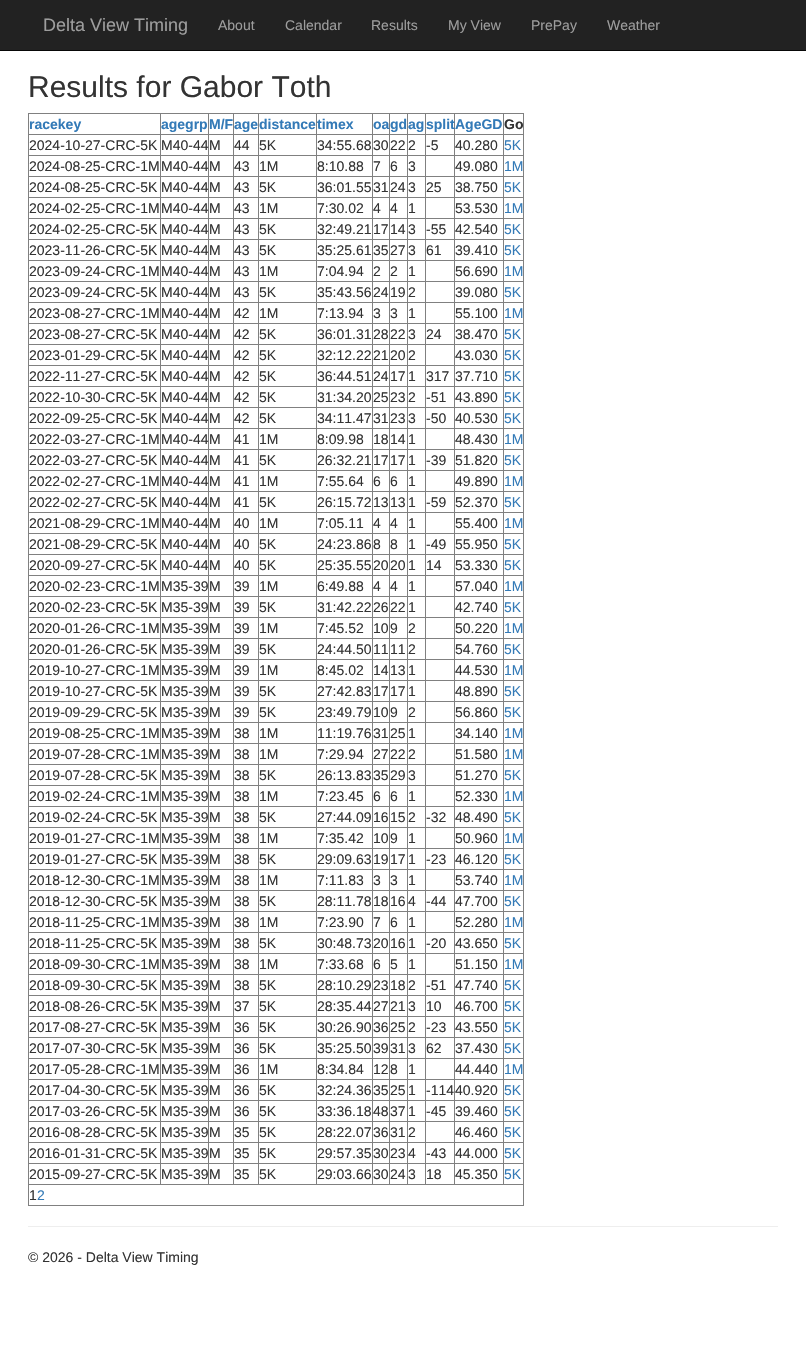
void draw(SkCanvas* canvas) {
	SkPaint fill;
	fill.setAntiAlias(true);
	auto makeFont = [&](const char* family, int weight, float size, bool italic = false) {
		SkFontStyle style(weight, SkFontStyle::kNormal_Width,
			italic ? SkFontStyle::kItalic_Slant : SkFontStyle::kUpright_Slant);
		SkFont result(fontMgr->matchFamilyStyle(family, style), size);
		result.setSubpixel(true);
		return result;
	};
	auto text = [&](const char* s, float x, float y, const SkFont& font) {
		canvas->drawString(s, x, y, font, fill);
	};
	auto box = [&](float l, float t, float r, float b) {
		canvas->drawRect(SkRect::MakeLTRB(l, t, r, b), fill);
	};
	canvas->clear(0xFFFFFFFF);
	fill.setColor(0xFF222222);
	box(0, 0, 806, 50);
	fill.setColor(0xFF080808);
	box(0, 50, 806, 51);
	fill.setColor(0xFF808080);
	box(28, 113, 524, 114);
	box(523, 113, 524, 1206);
	box(28, 1205, 524, 1206);
	box(28, 113, 29, 1206);
	box(503, 134, 524, 135);
	box(503, 155, 524, 156);
	box(503, 176, 524, 177);
	box(503, 197, 524, 198);
	box(503, 218, 524, 219);
	box(503, 239, 524, 240);
	box(503, 260, 524, 261);
	box(503, 281, 524, 282);
	box(503, 302, 524, 303);
	box(503, 323, 524, 324);
	box(503, 344, 524, 345);
	box(503, 365, 524, 366);
	box(503, 386, 524, 387);
	box(503, 407, 524, 408);
	box(503, 428, 524, 429);
	box(503, 449, 524, 450);
	box(503, 470, 524, 471);
	box(503, 491, 524, 492);
	box(503, 512, 524, 513);
	box(503, 533, 524, 534);
	box(503, 554, 524, 555);
	box(503, 575, 524, 576);
	box(503, 596, 524, 597);
	box(503, 617, 524, 618);
	box(503, 638, 524, 639);
	box(503, 659, 524, 660);
	box(503, 680, 524, 681);
	box(503, 701, 524, 702);
	box(503, 722, 524, 723);
	box(503, 743, 524, 744);
	box(503, 764, 524, 765);
	box(503, 785, 524, 786);
	box(503, 806, 524, 807);
	box(503, 827, 524, 828);
	box(503, 848, 524, 849);
	box(503, 869, 524, 870);
	box(503, 890, 524, 891);
	box(503, 911, 524, 912);
	box(503, 932, 524, 933);
	box(503, 953, 524, 954);
	box(503, 974, 524, 975);
	box(503, 995, 524, 996);
	box(503, 1016, 524, 1017);
	box(503, 1037, 524, 1038);
	box(503, 1058, 524, 1059);
	box(503, 1079, 524, 1080);
	box(503, 1100, 524, 1101);
	box(503, 1121, 524, 1122);
	box(503, 1142, 524, 1143);
	box(503, 1163, 524, 1164);
	box(28, 1184, 524, 1185);
	box(503, 1163, 504, 1185);
	box(454, 1163, 504, 1164);
	box(503, 1142, 504, 1164);
	box(454, 1142, 504, 1143);
	box(503, 1121, 504, 1143);
	box(454, 1121, 504, 1122);
	box(503, 1100, 504, 1122);
	box(454, 1100, 504, 1101);
	box(503, 1079, 504, 1101);
	box(454, 1079, 504, 1080);
	box(503, 1058, 504, 1080);
	box(454, 1058, 504, 1059);
	box(503, 1037, 504, 1059);
	box(454, 1037, 504, 1038);
	box(503, 1016, 504, 1038);
	box(454, 1016, 504, 1017);
	box(503, 995, 504, 1017);
	box(454, 995, 504, 996);
	box(503, 974, 504, 996);
	box(454, 974, 504, 975);
	box(503, 953, 504, 975);
	box(454, 953, 504, 954);
	box(503, 932, 504, 954);
	box(454, 932, 504, 933);
	box(503, 911, 504, 933);
	box(454, 911, 504, 912);
	box(503, 890, 504, 912);
	box(454, 890, 504, 891);
	box(503, 869, 504, 891);
	box(454, 869, 504, 870);
	box(503, 848, 504, 870);
	box(454, 848, 504, 849);
	box(503, 827, 504, 849);
	box(454, 827, 504, 828);
	box(503, 806, 504, 828);
	box(454, 806, 504, 807);
	box(503, 785, 504, 807);
	box(454, 785, 504, 786);
	box(503, 764, 504, 786);
	box(454, 764, 504, 765);
	box(503, 743, 504, 765);
	box(454, 743, 504, 744);
	box(503, 722, 504, 744);
	box(454, 722, 504, 723);
	box(503, 701, 504, 723);
	box(454, 701, 504, 702);
	box(503, 680, 504, 702);
	box(454, 680, 504, 681);
	box(503, 659, 504, 681);
	box(454, 659, 504, 660);
	box(503, 638, 504, 660);
	box(454, 638, 504, 639);
	box(503, 617, 504, 639);
	box(454, 617, 504, 618);
	box(503, 596, 504, 618);
	box(454, 596, 504, 597);
	box(503, 575, 504, 597);
	box(454, 575, 504, 576);
	box(503, 554, 504, 576);
	box(454, 554, 504, 555);
	box(503, 533, 504, 555);
	box(454, 533, 504, 534);
	box(503, 512, 504, 534);
	box(454, 512, 504, 513);
	box(503, 491, 504, 513);
	box(454, 491, 504, 492);
	box(503, 470, 504, 492);
	box(454, 470, 504, 471);
	box(503, 449, 504, 471);
	box(454, 449, 504, 450);
	box(503, 428, 504, 450);
	box(454, 428, 504, 429);
	box(503, 407, 504, 429);
	box(454, 407, 504, 408);
	box(503, 386, 504, 408);
	box(454, 386, 504, 387);
	box(503, 365, 504, 387);
	box(454, 365, 504, 366);
	box(503, 344, 504, 366);
	box(454, 344, 504, 345);
	box(503, 323, 504, 345);
	box(454, 323, 504, 324);
	box(503, 302, 504, 324);
	box(454, 302, 504, 303);
	box(503, 281, 504, 303);
	box(454, 281, 504, 282);
	box(503, 260, 504, 282);
	box(454, 260, 504, 261);
	box(503, 239, 504, 261);
	box(454, 239, 504, 240);
	box(503, 218, 504, 240);
	box(454, 218, 504, 219);
	box(503, 197, 504, 219);
	box(454, 197, 504, 198);
	box(503, 176, 504, 198);
	box(454, 176, 504, 177);
	box(503, 155, 504, 177);
	box(454, 155, 504, 156);
	box(503, 134, 504, 156);
	box(454, 134, 504, 135);
	box(454, 1163, 455, 1185);
	box(425, 1163, 455, 1164);
	box(454, 1142, 455, 1164);
	box(425, 1142, 455, 1143);
	box(454, 1121, 455, 1143);
	box(425, 1121, 455, 1122);
	box(454, 1100, 455, 1122);
	box(425, 1100, 455, 1101);
	box(454, 1079, 455, 1101);
	box(425, 1079, 455, 1080);
	box(454, 1058, 455, 1080);
	box(425, 1058, 455, 1059);
	box(454, 1037, 455, 1059);
	box(425, 1037, 455, 1038);
	box(454, 1016, 455, 1038);
	box(425, 1016, 455, 1017);
	box(454, 995, 455, 1017);
	box(425, 995, 455, 996);
	box(454, 974, 455, 996);
	box(425, 974, 455, 975);
	box(454, 953, 455, 975);
	box(425, 953, 455, 954);
	box(454, 932, 455, 954);
	box(425, 932, 455, 933);
	box(454, 911, 455, 933);
	box(425, 911, 455, 912);
	box(454, 890, 455, 912);
	box(425, 890, 455, 891);
	box(454, 869, 455, 891);
	box(425, 869, 455, 870);
	box(454, 848, 455, 870);
	box(425, 848, 455, 849);
	box(454, 827, 455, 849);
	box(425, 827, 455, 828);
	box(454, 806, 455, 828);
	box(425, 806, 455, 807);
	box(454, 785, 455, 807);
	box(425, 785, 455, 786);
	box(454, 764, 455, 786);
	box(425, 764, 455, 765);
	box(454, 743, 455, 765);
	box(425, 743, 455, 744);
	box(454, 722, 455, 744);
	box(425, 722, 455, 723);
	box(454, 701, 455, 723);
	box(425, 701, 455, 702);
	box(454, 680, 455, 702);
	box(425, 680, 455, 681);
	box(454, 659, 455, 681);
	box(425, 659, 455, 660);
	box(454, 638, 455, 660);
	box(425, 638, 455, 639);
	box(454, 617, 455, 639);
	box(425, 617, 455, 618);
	box(454, 596, 455, 618);
	box(425, 596, 455, 597);
	box(454, 575, 455, 597);
	box(425, 575, 455, 576);
	box(454, 554, 455, 576);
	box(425, 554, 455, 555);
	box(454, 533, 455, 555);
	box(425, 533, 455, 534);
	box(454, 512, 455, 534);
	box(425, 512, 455, 513);
	box(454, 491, 455, 513);
	box(425, 491, 455, 492);
	box(454, 470, 455, 492);
	box(425, 470, 455, 471);
	box(454, 449, 455, 471);
	box(425, 449, 455, 450);
	box(454, 428, 455, 450);
	box(425, 428, 455, 429);
	box(454, 407, 455, 429);
	box(425, 407, 455, 408);
	box(454, 386, 455, 408);
	box(425, 386, 455, 387);
	box(454, 365, 455, 387);
	box(425, 365, 455, 366);
	box(454, 344, 455, 366);
	box(425, 344, 455, 345);
	box(454, 323, 455, 345);
	box(425, 323, 455, 324);
	box(454, 302, 455, 324);
	box(425, 302, 455, 303);
	box(454, 281, 455, 303);
	box(425, 281, 455, 282);
	box(454, 260, 455, 282);
	box(425, 260, 455, 261);
	box(454, 239, 455, 261);
	box(425, 239, 455, 240);
	box(454, 218, 455, 240);
	box(425, 218, 455, 219);
	box(454, 197, 455, 219);
	box(425, 197, 455, 198);
	box(454, 176, 455, 198);
	box(425, 176, 455, 177);
	box(454, 155, 455, 177);
	box(425, 155, 455, 156);
	box(454, 134, 455, 156);
	box(425, 134, 455, 135);
	box(425, 1163, 426, 1185);
	box(407, 1163, 426, 1164);
	box(425, 1142, 426, 1164);
	box(407, 1142, 426, 1143);
	box(425, 1121, 426, 1143);
	box(407, 1121, 426, 1122);
	box(425, 1100, 426, 1122);
	box(407, 1100, 426, 1101);
	box(425, 1079, 426, 1101);
	box(407, 1079, 426, 1080);
	box(425, 1058, 426, 1080);
	box(407, 1058, 426, 1059);
	box(425, 1037, 426, 1059);
	box(407, 1037, 426, 1038);
	box(425, 1016, 426, 1038);
	box(407, 1016, 426, 1017);
	box(425, 995, 426, 1017);
	box(407, 995, 426, 996);
	box(425, 974, 426, 996);
	box(407, 974, 426, 975);
	box(425, 953, 426, 975);
	box(407, 953, 426, 954);
	box(425, 932, 426, 954);
	box(407, 932, 426, 933);
	box(425, 911, 426, 933);
	box(407, 911, 426, 912);
	box(425, 890, 426, 912);
	box(407, 890, 426, 891);
	box(425, 869, 426, 891);
	box(407, 869, 426, 870);
	box(425, 848, 426, 870);
	box(407, 848, 426, 849);
	box(425, 827, 426, 849);
	box(407, 827, 426, 828);
	box(425, 806, 426, 828);
	box(407, 806, 426, 807);
	box(425, 785, 426, 807);
	box(407, 785, 426, 786);
	box(425, 764, 426, 786);
	box(407, 764, 426, 765);
	box(425, 743, 426, 765);
	box(407, 743, 426, 744);
	box(425, 722, 426, 744);
	box(407, 722, 426, 723);
	box(425, 701, 426, 723);
	box(407, 701, 426, 702);
	box(425, 680, 426, 702);
	box(407, 680, 426, 681);
	box(425, 659, 426, 681);
	box(407, 659, 426, 660);
	box(425, 638, 426, 660);
	box(407, 638, 426, 639);
	box(425, 617, 426, 639);
	box(407, 617, 426, 618);
	box(425, 596, 426, 618);
	box(407, 596, 426, 597);
	box(425, 575, 426, 597);
	box(407, 575, 426, 576);
	box(425, 554, 426, 576);
	box(407, 554, 426, 555);
	box(425, 533, 426, 555);
	box(407, 533, 426, 534);
	box(425, 512, 426, 534);
	box(407, 512, 426, 513);
	box(425, 491, 426, 513);
	box(407, 491, 426, 492);
	box(425, 470, 426, 492);
	box(407, 470, 426, 471);
	box(425, 449, 426, 471);
	box(407, 449, 426, 450);
	box(425, 428, 426, 450);
	box(407, 428, 426, 429);
	box(425, 407, 426, 429);
	box(407, 407, 426, 408);
	box(425, 386, 426, 408);
	box(407, 386, 426, 387);
	box(425, 365, 426, 387);
	box(407, 365, 426, 366);
	box(425, 344, 426, 366);
	box(407, 344, 426, 345);
	box(425, 323, 426, 345);
	box(407, 323, 426, 324);
	box(425, 302, 426, 324);
	box(407, 302, 426, 303);
	box(425, 281, 426, 303);
	box(407, 281, 426, 282);
	box(425, 260, 426, 282);
	box(407, 260, 426, 261);
	box(425, 239, 426, 261);
	box(407, 239, 426, 240);
	box(425, 218, 426, 240);
	box(407, 218, 426, 219);
	box(425, 197, 426, 219);
	box(407, 197, 426, 198);
	box(425, 176, 426, 198);
	box(407, 176, 426, 177);
	box(425, 155, 426, 177);
	box(407, 155, 426, 156);
	box(425, 134, 426, 156);
	box(407, 134, 426, 135);
	box(407, 1163, 408, 1185);
	box(389, 1163, 408, 1164);
	box(407, 1142, 408, 1164);
	box(389, 1142, 408, 1143);
	box(407, 1121, 408, 1143);
	box(389, 1121, 408, 1122);
	box(407, 1100, 408, 1122);
	box(389, 1100, 408, 1101);
	box(407, 1079, 408, 1101);
	box(389, 1079, 408, 1080);
	box(407, 1058, 408, 1080);
	box(389, 1058, 408, 1059);
	box(407, 1037, 408, 1059);
	box(389, 1037, 408, 1038);
	box(407, 1016, 408, 1038);
	box(389, 1016, 408, 1017);
	box(407, 995, 408, 1017);
	box(389, 995, 408, 996);
	box(407, 974, 408, 996);
	box(389, 974, 408, 975);
	box(407, 953, 408, 975);
	box(389, 953, 408, 954);
	box(407, 932, 408, 954);
	box(389, 932, 408, 933);
	box(407, 911, 408, 933);
	box(389, 911, 408, 912);
	box(407, 890, 408, 912);
	box(389, 890, 408, 891);
	box(407, 869, 408, 891);
	box(389, 869, 408, 870);
	box(407, 848, 408, 870);
	box(389, 848, 408, 849);
	box(407, 827, 408, 849);
	box(389, 827, 408, 828);
	box(407, 806, 408, 828);
	box(389, 806, 408, 807);
	box(407, 785, 408, 807);
	box(389, 785, 408, 786);
	box(407, 764, 408, 786);
	box(389, 764, 408, 765);
	box(407, 743, 408, 765);
	box(389, 743, 408, 744);
	box(407, 722, 408, 744);
	box(389, 722, 408, 723);
	box(407, 701, 408, 723);
	box(389, 701, 408, 702);
	box(407, 680, 408, 702);
	box(389, 680, 408, 681);
	box(407, 659, 408, 681);
	box(389, 659, 408, 660);
	box(407, 638, 408, 660);
	box(389, 638, 408, 639);
	box(407, 617, 408, 639);
	box(389, 617, 408, 618);
	box(407, 596, 408, 618);
	box(389, 596, 408, 597);
	box(407, 575, 408, 597);
	box(389, 575, 408, 576);
	box(407, 554, 408, 576);
	box(389, 554, 408, 555);
	box(407, 533, 408, 555);
	box(389, 533, 408, 534);
	box(407, 512, 408, 534);
	box(389, 512, 408, 513);
	box(407, 491, 408, 513);
	box(389, 491, 408, 492);
	box(407, 470, 408, 492);
	box(389, 470, 408, 471);
	box(407, 449, 408, 471);
	box(389, 449, 408, 450);
	box(407, 428, 408, 450);
	box(389, 428, 408, 429);
	box(407, 407, 408, 429);
	box(389, 407, 408, 408);
	box(407, 386, 408, 408);
	box(389, 386, 408, 387);
	box(407, 365, 408, 387);
	box(389, 365, 408, 366);
	box(407, 344, 408, 366);
	box(389, 344, 408, 345);
	box(407, 323, 408, 345);
	box(389, 323, 408, 324);
	box(407, 302, 408, 324);
	box(389, 302, 408, 303);
	box(407, 281, 408, 303);
	box(389, 281, 408, 282);
	box(407, 260, 408, 282);
	box(389, 260, 408, 261);
	box(407, 239, 408, 261);
	box(389, 239, 408, 240);
	box(407, 218, 408, 240);
	box(389, 218, 408, 219);
	box(407, 197, 408, 219);
	box(389, 197, 408, 198);
	box(407, 176, 408, 198);
	box(389, 176, 408, 177);
	box(407, 155, 408, 177);
	box(389, 155, 408, 156);
	box(407, 134, 408, 156);
	box(389, 134, 408, 135);
	box(389, 1163, 390, 1185);
	box(372, 1163, 390, 1164);
	box(389, 1142, 390, 1164);
	box(372, 1142, 390, 1143);
	box(389, 1121, 390, 1143);
	box(372, 1121, 390, 1122);
	box(389, 1100, 390, 1122);
	box(372, 1100, 390, 1101);
	box(389, 1079, 390, 1101);
	box(372, 1079, 390, 1080);
	box(389, 1058, 390, 1080);
	box(372, 1058, 390, 1059);
	box(389, 1037, 390, 1059);
	box(372, 1037, 390, 1038);
	box(389, 1016, 390, 1038);
	box(372, 1016, 390, 1017);
	box(389, 995, 390, 1017);
	box(372, 995, 390, 996);
	box(389, 974, 390, 996);
	box(372, 974, 390, 975);
	box(389, 953, 390, 975);
	box(372, 953, 390, 954);
	box(389, 932, 390, 954);
	box(372, 932, 390, 933);
	box(389, 911, 390, 933);
	box(372, 911, 390, 912);
	box(389, 890, 390, 912);
	box(372, 890, 390, 891);
	box(389, 869, 390, 891);
	box(372, 869, 390, 870);
	box(389, 848, 390, 870);
	box(372, 848, 390, 849);
	box(389, 827, 390, 849);
	box(372, 827, 390, 828);
	box(389, 806, 390, 828);
	box(372, 806, 390, 807);
	box(389, 785, 390, 807);
	box(372, 785, 390, 786);
	box(389, 764, 390, 786);
	box(372, 764, 390, 765);
	box(389, 743, 390, 765);
	box(372, 743, 390, 744);
	box(389, 722, 390, 744);
	box(372, 722, 390, 723);
	box(389, 701, 390, 723);
	box(372, 701, 390, 702);
	box(389, 680, 390, 702);
	box(372, 680, 390, 681);
	box(389, 659, 390, 681);
	box(372, 659, 390, 660);
	box(389, 638, 390, 660);
	box(372, 638, 390, 639);
	box(389, 617, 390, 639);
	box(372, 617, 390, 618);
	box(389, 596, 390, 618);
	box(372, 596, 390, 597);
	box(389, 575, 390, 597);
	box(372, 575, 390, 576);
	box(389, 554, 390, 576);
	box(372, 554, 390, 555);
	box(389, 533, 390, 555);
	box(372, 533, 390, 534);
	box(389, 512, 390, 534);
	box(372, 512, 390, 513);
	box(389, 491, 390, 513);
	box(372, 491, 390, 492);
	box(389, 470, 390, 492);
	box(372, 470, 390, 471);
	box(389, 449, 390, 471);
	box(372, 449, 390, 450);
	box(389, 428, 390, 450);
	box(372, 428, 390, 429);
	box(389, 407, 390, 429);
	box(372, 407, 390, 408);
	box(389, 386, 390, 408);
	box(372, 386, 390, 387);
	box(389, 365, 390, 387);
	box(372, 365, 390, 366);
	box(389, 344, 390, 366);
	box(372, 344, 390, 345);
	box(389, 323, 390, 345);
	box(372, 323, 390, 324);
	box(389, 302, 390, 324);
	box(372, 302, 390, 303);
	box(389, 281, 390, 303);
	box(372, 281, 390, 282);
	box(389, 260, 390, 282);
	box(372, 260, 390, 261);
	box(389, 239, 390, 261);
	box(372, 239, 390, 240);
	box(389, 218, 390, 240);
	box(372, 218, 390, 219);
	box(389, 197, 390, 219);
	box(372, 197, 390, 198);
	box(389, 176, 390, 198);
	box(372, 176, 390, 177);
	box(389, 155, 390, 177);
	box(372, 155, 390, 156);
	box(389, 134, 390, 156);
	box(372, 134, 390, 135);
	box(372, 1163, 373, 1185);
	box(316, 1163, 373, 1164);
	box(372, 1142, 373, 1164);
	box(316, 1142, 373, 1143);
	box(372, 1121, 373, 1143);
	box(316, 1121, 373, 1122);
	box(372, 1100, 373, 1122);
	box(316, 1100, 373, 1101);
	box(372, 1079, 373, 1101);
	box(316, 1079, 373, 1080);
	box(372, 1058, 373, 1080);
	box(316, 1058, 373, 1059);
	box(372, 1037, 373, 1059);
	box(316, 1037, 373, 1038);
	box(372, 1016, 373, 1038);
	box(316, 1016, 373, 1017);
	box(372, 995, 373, 1017);
	box(316, 995, 373, 996);
	box(372, 974, 373, 996);
	box(316, 974, 373, 975);
	box(372, 953, 373, 975);
	box(316, 953, 373, 954);
	box(372, 932, 373, 954);
	box(316, 932, 373, 933);
	box(372, 911, 373, 933);
	box(316, 911, 373, 912);
	box(372, 890, 373, 912);
	box(316, 890, 373, 891);
	box(372, 869, 373, 891);
	box(316, 869, 373, 870);
	box(372, 848, 373, 870);
	box(316, 848, 373, 849);
	box(372, 827, 373, 849);
	box(316, 827, 373, 828);
	box(372, 806, 373, 828);
	box(316, 806, 373, 807);
	box(372, 785, 373, 807);
	box(316, 785, 373, 786);
	box(372, 764, 373, 786);
	box(316, 764, 373, 765);
	box(372, 743, 373, 765);
	box(316, 743, 373, 744);
	box(372, 722, 373, 744);
	box(316, 722, 373, 723);
	box(372, 701, 373, 723);
	box(316, 701, 373, 702);
	box(372, 680, 373, 702);
	box(316, 680, 373, 681);
	box(372, 659, 373, 681);
	box(316, 659, 373, 660);
	box(372, 638, 373, 660);
	box(316, 638, 373, 639);
	box(372, 617, 373, 639);
	box(316, 617, 373, 618);
	box(372, 596, 373, 618);
	box(316, 596, 373, 597);
	box(372, 575, 373, 597);
	box(316, 575, 373, 576);
	box(372, 554, 373, 576);
	box(316, 554, 373, 555);
	box(372, 533, 373, 555);
	box(316, 533, 373, 534);
	box(372, 512, 373, 534);
	box(316, 512, 373, 513);
	box(372, 491, 373, 513);
	box(316, 491, 373, 492);
	box(372, 470, 373, 492);
	box(316, 470, 373, 471);
	box(372, 449, 373, 471);
	box(316, 449, 373, 450);
	box(372, 428, 373, 450);
	box(316, 428, 373, 429);
	box(372, 407, 373, 429);
	box(316, 407, 373, 408);
	box(372, 386, 373, 408);
	box(316, 386, 373, 387);
	box(372, 365, 373, 387);
	box(316, 365, 373, 366);
	box(372, 344, 373, 366);
	box(316, 344, 373, 345);
	box(372, 323, 373, 345);
	box(316, 323, 373, 324);
	box(372, 302, 373, 324);
	box(316, 302, 373, 303);
	box(372, 281, 373, 303);
	box(316, 281, 373, 282);
	box(372, 260, 373, 282);
	box(316, 260, 373, 261);
	box(372, 239, 373, 261);
	box(316, 239, 373, 240);
	box(372, 218, 373, 240);
	box(316, 218, 373, 219);
	box(372, 197, 373, 219);
	box(316, 197, 373, 198);
	box(372, 176, 373, 198);
	box(316, 176, 373, 177);
	box(372, 155, 373, 177);
	box(316, 155, 373, 156);
	box(372, 134, 373, 156);
	box(316, 134, 373, 135);
	box(316, 1163, 317, 1185);
	box(258, 1163, 317, 1164);
	box(316, 1142, 317, 1164);
	box(258, 1142, 317, 1143);
	box(316, 1121, 317, 1143);
	box(258, 1121, 317, 1122);
	box(316, 1100, 317, 1122);
	box(258, 1100, 317, 1101);
	box(316, 1079, 317, 1101);
	box(258, 1079, 317, 1080);
	box(316, 1058, 317, 1080);
	box(258, 1058, 317, 1059);
	box(316, 1037, 317, 1059);
	box(258, 1037, 317, 1038);
	box(316, 1016, 317, 1038);
	box(258, 1016, 317, 1017);
	box(316, 995, 317, 1017);
	box(258, 995, 317, 996);
	box(316, 974, 317, 996);
	box(258, 974, 317, 975);
	box(316, 953, 317, 975);
	box(258, 953, 317, 954);
	box(316, 932, 317, 954);
	box(258, 932, 317, 933);
	box(316, 911, 317, 933);
	box(258, 911, 317, 912);
	box(316, 890, 317, 912);
	box(258, 890, 317, 891);
	box(316, 869, 317, 891);
	box(258, 869, 317, 870);
	box(316, 848, 317, 870);
	box(258, 848, 317, 849);
	box(316, 827, 317, 849);
	box(258, 827, 317, 828);
	box(316, 806, 317, 828);
	box(258, 806, 317, 807);
	box(316, 785, 317, 807);
	box(258, 785, 317, 786);
	box(316, 764, 317, 786);
	box(258, 764, 317, 765);
	box(316, 743, 317, 765);
	box(258, 743, 317, 744);
	box(316, 722, 317, 744);
	box(258, 722, 317, 723);
	box(316, 701, 317, 723);
	box(258, 701, 317, 702);
	box(316, 680, 317, 702);
	box(258, 680, 317, 681);
	box(316, 659, 317, 681);
	box(258, 659, 317, 660);
	box(316, 638, 317, 660);
	box(258, 638, 317, 639);
	box(316, 617, 317, 639);
	box(258, 617, 317, 618);
	box(316, 596, 317, 618);
	box(258, 596, 317, 597);
	box(316, 575, 317, 597);
	box(258, 575, 317, 576);
	box(316, 554, 317, 576);
	box(258, 554, 317, 555);
	box(316, 533, 317, 555);
	box(258, 533, 317, 534);
	box(316, 512, 317, 534);
	box(258, 512, 317, 513);
	box(316, 491, 317, 513);
	box(258, 491, 317, 492);
	box(316, 470, 317, 492);
	box(258, 470, 317, 471);
	box(316, 449, 317, 471);
	box(258, 449, 317, 450);
	box(316, 428, 317, 450);
	box(258, 428, 317, 429);
	box(316, 407, 317, 429);
	box(258, 407, 317, 408);
	box(316, 386, 317, 408);
	box(258, 386, 317, 387);
	box(316, 365, 317, 387);
	box(258, 365, 317, 366);
	box(316, 344, 317, 366);
	box(258, 344, 317, 345);
	box(316, 323, 317, 345);
	box(258, 323, 317, 324);
	box(316, 302, 317, 324);
	box(258, 302, 317, 303);
	box(316, 281, 317, 303);
	box(258, 281, 317, 282);
	box(316, 260, 317, 282);
	box(258, 260, 317, 261);
	box(316, 239, 317, 261);
	box(258, 239, 317, 240);
	box(316, 218, 317, 240);
	box(258, 218, 317, 219);
	box(316, 197, 317, 219);
	box(258, 197, 317, 198);
	box(316, 176, 317, 198);
	box(258, 176, 317, 177);
	box(316, 155, 317, 177);
	box(258, 155, 317, 156);
	box(316, 134, 317, 156);
	box(258, 134, 317, 135);
	box(258, 1163, 259, 1185);
	box(233, 1163, 259, 1164);
	box(258, 1142, 259, 1164);
	box(233, 1142, 259, 1143);
	box(258, 1121, 259, 1143);
	box(233, 1121, 259, 1122);
	box(258, 1100, 259, 1122);
	box(233, 1100, 259, 1101);
	box(258, 1079, 259, 1101);
	box(233, 1079, 259, 1080);
	box(258, 1058, 259, 1080);
	box(233, 1058, 259, 1059);
	box(258, 1037, 259, 1059);
	box(233, 1037, 259, 1038);
	box(258, 1016, 259, 1038);
	box(233, 1016, 259, 1017);
	box(258, 995, 259, 1017);
	box(233, 995, 259, 996);
	box(258, 974, 259, 996);
	box(233, 974, 259, 975);
	box(258, 953, 259, 975);
	box(233, 953, 259, 954);
	box(258, 932, 259, 954);
	box(233, 932, 259, 933);
	box(258, 911, 259, 933);
	box(233, 911, 259, 912);
	box(258, 890, 259, 912);
	box(233, 890, 259, 891);
	box(258, 869, 259, 891);
	box(233, 869, 259, 870);
	box(258, 848, 259, 870);
	box(233, 848, 259, 849);
	box(258, 827, 259, 849);
	box(233, 827, 259, 828);
	box(258, 806, 259, 828);
	box(233, 806, 259, 807);
	box(258, 785, 259, 807);
	box(233, 785, 259, 786);
	box(258, 764, 259, 786);
	box(233, 764, 259, 765);
	box(258, 743, 259, 765);
	box(233, 743, 259, 744);
	box(258, 722, 259, 744);
	box(233, 722, 259, 723);
	box(258, 701, 259, 723);
	box(233, 701, 259, 702);
	box(258, 680, 259, 702);
	box(233, 680, 259, 681);
	box(258, 659, 259, 681);
	box(233, 659, 259, 660);
	box(258, 638, 259, 660);
	box(233, 638, 259, 639);
	box(258, 617, 259, 639);
	box(233, 617, 259, 618);
	box(258, 596, 259, 618);
	box(233, 596, 259, 597);
	box(258, 575, 259, 597);
	box(233, 575, 259, 576);
	box(258, 554, 259, 576);
	box(233, 554, 259, 555);
	box(258, 533, 259, 555);
	box(233, 533, 259, 534);
	box(258, 512, 259, 534);
	box(233, 512, 259, 513);
	box(258, 491, 259, 513);
	box(233, 491, 259, 492);
	box(258, 470, 259, 492);
	box(233, 470, 259, 471);
	box(258, 449, 259, 471);
	box(233, 449, 259, 450);
	box(258, 428, 259, 450);
	box(233, 428, 259, 429);
	box(258, 407, 259, 429);
	box(233, 407, 259, 408);
	box(258, 386, 259, 408);
	box(233, 386, 259, 387);
	box(258, 365, 259, 387);
	box(233, 365, 259, 366);
	box(258, 344, 259, 366);
	box(233, 344, 259, 345);
	box(258, 323, 259, 345);
	box(233, 323, 259, 324);
	box(258, 302, 259, 324);
	box(233, 302, 259, 303);
	box(258, 281, 259, 303);
	box(233, 281, 259, 282);
	box(258, 260, 259, 282);
	box(233, 260, 259, 261);
	box(258, 239, 259, 261);
	box(233, 239, 259, 240);
	box(258, 218, 259, 240);
	box(233, 218, 259, 219);
	box(258, 197, 259, 219);
	box(233, 197, 259, 198);
	box(258, 176, 259, 198);
	box(233, 176, 259, 177);
	box(258, 155, 259, 177);
	box(233, 155, 259, 156);
	box(258, 134, 259, 156);
	box(233, 134, 259, 135);
	box(233, 1163, 234, 1185);
	box(208, 1163, 234, 1164);
	box(233, 1142, 234, 1164);
	box(208, 1142, 234, 1143);
	box(233, 1121, 234, 1143);
	box(208, 1121, 234, 1122);
	box(233, 1100, 234, 1122);
	box(208, 1100, 234, 1101);
	box(233, 1079, 234, 1101);
	box(208, 1079, 234, 1080);
	box(233, 1058, 234, 1080);
	box(208, 1058, 234, 1059);
	box(233, 1037, 234, 1059);
	box(208, 1037, 234, 1038);
	box(233, 1016, 234, 1038);
	box(208, 1016, 234, 1017);
	box(233, 995, 234, 1017);
	box(208, 995, 234, 996);
	box(233, 974, 234, 996);
	box(208, 974, 234, 975);
	box(233, 953, 234, 975);
	box(208, 953, 234, 954);
	box(233, 932, 234, 954);
	box(208, 932, 234, 933);
	box(233, 911, 234, 933);
	box(208, 911, 234, 912);
	box(233, 890, 234, 912);
	box(208, 890, 234, 891);
	box(233, 869, 234, 891);
	box(208, 869, 234, 870);
	box(233, 848, 234, 870);
	box(208, 848, 234, 849);
	box(233, 827, 234, 849);
	box(208, 827, 234, 828);
	box(233, 806, 234, 828);
	box(208, 806, 234, 807);
	box(233, 785, 234, 807);
	box(208, 785, 234, 786);
	box(233, 764, 234, 786);
	box(208, 764, 234, 765);
	box(233, 743, 234, 765);
	box(208, 743, 234, 744);
	box(233, 722, 234, 744);
	box(208, 722, 234, 723);
	box(233, 701, 234, 723);
	box(208, 701, 234, 702);
	box(233, 680, 234, 702);
	box(208, 680, 234, 681);
	box(233, 659, 234, 681);
	box(208, 659, 234, 660);
	box(233, 638, 234, 660);
	box(208, 638, 234, 639);
	box(233, 617, 234, 639);
	box(208, 617, 234, 618);
	box(233, 596, 234, 618);
	box(208, 596, 234, 597);
	box(233, 575, 234, 597);
	box(208, 575, 234, 576);
	box(233, 554, 234, 576);
	box(208, 554, 234, 555);
	box(233, 533, 234, 555);
	box(208, 533, 234, 534);
	box(233, 512, 234, 534);
	box(208, 512, 234, 513);
	box(233, 491, 234, 513);
	box(208, 491, 234, 492);
	box(233, 470, 234, 492);
	box(208, 470, 234, 471);
	box(233, 449, 234, 471);
	box(208, 449, 234, 450);
	box(233, 428, 234, 450);
	box(208, 428, 234, 429);
	box(233, 407, 234, 429);
	box(208, 407, 234, 408);
	box(233, 386, 234, 408);
	box(208, 386, 234, 387);
	box(233, 365, 234, 387);
	box(208, 365, 234, 366);
	box(233, 344, 234, 366);
	box(208, 344, 234, 345);
	box(233, 323, 234, 345);
	box(208, 323, 234, 324);
	box(233, 302, 234, 324);
	box(208, 302, 234, 303);
	box(233, 281, 234, 303);
	box(208, 281, 234, 282);
	box(233, 260, 234, 282);
	box(208, 260, 234, 261);
	box(233, 239, 234, 261);
	box(208, 239, 234, 240);
	box(233, 218, 234, 240);
	box(208, 218, 234, 219);
	box(233, 197, 234, 219);
	box(208, 197, 234, 198);
	box(233, 176, 234, 198);
	box(208, 176, 234, 177);
	box(233, 155, 234, 177);
	box(208, 155, 234, 156);
	box(233, 134, 234, 156);
	box(208, 134, 234, 135);
	box(208, 1163, 209, 1185);
	box(160, 1163, 209, 1164);
	box(208, 1142, 209, 1164);
	box(160, 1142, 209, 1143);
	box(208, 1121, 209, 1143);
	box(160, 1121, 209, 1122);
	box(208, 1100, 209, 1122);
	box(160, 1100, 209, 1101);
	box(208, 1079, 209, 1101);
	box(160, 1079, 209, 1080);
	box(208, 1058, 209, 1080);
	box(160, 1058, 209, 1059);
	box(208, 1037, 209, 1059);
	box(160, 1037, 209, 1038);
	box(208, 1016, 209, 1038);
	box(160, 1016, 209, 1017);
	box(208, 995, 209, 1017);
	box(160, 995, 209, 996);
	box(208, 974, 209, 996);
	box(160, 974, 209, 975);
	box(208, 953, 209, 975);
	box(160, 953, 209, 954);
	box(208, 932, 209, 954);
	box(160, 932, 209, 933);
	box(208, 911, 209, 933);
	box(160, 911, 209, 912);
	box(208, 890, 209, 912);
	box(160, 890, 209, 891);
	box(208, 869, 209, 891);
	box(160, 869, 209, 870);
	box(208, 848, 209, 870);
	box(160, 848, 209, 849);
	box(208, 827, 209, 849);
	box(160, 827, 209, 828);
	box(208, 806, 209, 828);
	box(160, 806, 209, 807);
	box(208, 785, 209, 807);
	box(160, 785, 209, 786);
	box(208, 764, 209, 786);
	box(160, 764, 209, 765);
	box(208, 743, 209, 765);
	box(160, 743, 209, 744);
	box(208, 722, 209, 744);
	box(160, 722, 209, 723);
	box(208, 701, 209, 723);
	box(160, 701, 209, 702);
	box(208, 680, 209, 702);
	box(160, 680, 209, 681);
	box(208, 659, 209, 681);
	box(160, 659, 209, 660);
	box(208, 638, 209, 660);
	box(160, 638, 209, 639);
	box(208, 617, 209, 639);
	box(160, 617, 209, 618);
	box(208, 596, 209, 618);
	box(160, 596, 209, 597);
	box(208, 575, 209, 597);
	box(160, 575, 209, 576);
	box(208, 554, 209, 576);
	box(160, 554, 209, 555);
	box(208, 533, 209, 555);
	box(160, 533, 209, 534);
	box(208, 512, 209, 534);
	box(160, 512, 209, 513);
	box(208, 491, 209, 513);
	box(160, 491, 209, 492);
	box(208, 470, 209, 492);
	box(160, 470, 209, 471);
	box(208, 449, 209, 471);
	box(160, 449, 209, 450);
	box(208, 428, 209, 450);
	box(160, 428, 209, 429);
	box(208, 407, 209, 429);
	box(160, 407, 209, 408);
	box(208, 386, 209, 408);
	box(160, 386, 209, 387);
	box(208, 365, 209, 387);
	box(160, 365, 209, 366);
	box(208, 344, 209, 366);
	box(160, 344, 209, 345);
	box(208, 323, 209, 345);
	box(160, 323, 209, 324);
	box(208, 302, 209, 324);
	box(160, 302, 209, 303);
	box(208, 281, 209, 303);
	box(160, 281, 209, 282);
	box(208, 260, 209, 282);
	box(160, 260, 209, 261);
	box(208, 239, 209, 261);
	box(160, 239, 209, 240);
	box(208, 218, 209, 240);
	box(160, 218, 209, 219);
	box(208, 197, 209, 219);
	box(160, 197, 209, 198);
	box(208, 176, 209, 198);
	box(160, 176, 209, 177);
	box(208, 155, 209, 177);
	box(160, 155, 209, 156);
	box(208, 134, 209, 156);
	box(160, 134, 209, 135);
	box(160, 1163, 161, 1185);
	box(28, 1163, 161, 1164);
	box(160, 1142, 161, 1164);
	box(28, 1142, 161, 1143);
	box(160, 1121, 161, 1143);
	box(28, 1121, 161, 1122);
	box(160, 1100, 161, 1122);
	box(28, 1100, 161, 1101);
	box(160, 1079, 161, 1101);
	box(28, 1079, 161, 1080);
	box(160, 1058, 161, 1080);
	box(28, 1058, 161, 1059);
	box(160, 1037, 161, 1059);
	box(28, 1037, 161, 1038);
	box(160, 1016, 161, 1038);
	box(28, 1016, 161, 1017);
	box(160, 995, 161, 1017);
	box(28, 995, 161, 996);
	box(160, 974, 161, 996);
	box(28, 974, 161, 975);
	box(160, 953, 161, 975);
	box(28, 953, 161, 954);
	box(160, 932, 161, 954);
	box(28, 932, 161, 933);
	box(160, 911, 161, 933);
	box(28, 911, 161, 912);
	box(160, 890, 161, 912);
	box(28, 890, 161, 891);
	box(160, 869, 161, 891);
	box(28, 869, 161, 870);
	box(160, 848, 161, 870);
	box(28, 848, 161, 849);
	box(160, 827, 161, 849);
	box(28, 827, 161, 828);
	box(160, 806, 161, 828);
	box(28, 806, 161, 807);
	box(160, 785, 161, 807);
	box(28, 785, 161, 786);
	box(160, 764, 161, 786);
	box(28, 764, 161, 765);
	box(160, 743, 161, 765);
	box(28, 743, 161, 744);
	box(160, 722, 161, 744);
	box(28, 722, 161, 723);
	box(160, 701, 161, 723);
	box(28, 701, 161, 702);
	box(160, 680, 161, 702);
	box(28, 680, 161, 681);
	box(160, 659, 161, 681);
	box(28, 659, 161, 660);
	box(160, 638, 161, 660);
	box(28, 638, 161, 639);
	box(160, 617, 161, 639);
	box(28, 617, 161, 618);
	box(160, 596, 161, 618);
	box(28, 596, 161, 597);
	box(160, 575, 161, 597);
	box(28, 575, 161, 576);
	box(160, 554, 161, 576);
	box(28, 554, 161, 555);
	box(160, 533, 161, 555);
	box(28, 533, 161, 534);
	box(160, 512, 161, 534);
	box(28, 512, 161, 513);
	box(160, 491, 161, 513);
	box(28, 491, 161, 492);
	box(160, 470, 161, 492);
	box(28, 470, 161, 471);
	box(160, 449, 161, 471);
	box(28, 449, 161, 450);
	box(160, 428, 161, 450);
	box(28, 428, 161, 429);
	box(160, 407, 161, 429);
	box(28, 407, 161, 408);
	box(160, 386, 161, 408);
	box(28, 386, 161, 387);
	box(160, 365, 161, 387);
	box(28, 365, 161, 366);
	box(160, 344, 161, 366);
	box(28, 344, 161, 345);
	box(160, 323, 161, 345);
	box(28, 323, 161, 324);
	box(160, 302, 161, 324);
	box(28, 302, 161, 303);
	box(160, 281, 161, 303);
	box(28, 281, 161, 282);
	box(160, 260, 161, 282);
	box(28, 260, 161, 261);
	box(160, 239, 161, 261);
	box(28, 239, 161, 240);
	box(160, 218, 161, 240);
	box(28, 218, 161, 219);
	box(160, 197, 161, 219);
	box(28, 197, 161, 198);
	box(160, 176, 161, 198);
	box(28, 176, 161, 177);
	box(160, 155, 161, 177);
	box(28, 155, 161, 156);
	box(160, 134, 161, 156);
	box(28, 134, 161, 135);
	box(160, 113, 161, 135);
	box(208, 113, 209, 135);
	box(233, 113, 234, 135);
	box(258, 113, 259, 135);
	box(316, 113, 317, 135);
	box(372, 113, 373, 135);
	box(389, 113, 390, 135);
	box(407, 113, 408, 135);
	box(425, 113, 426, 135);
	box(454, 113, 455, 135);
	box(503, 113, 504, 135);
	fill.setColor(0xFFEEEEEE);
	box(28, 1226, 778, 1227);
	auto font1 = makeFont("Liberation Sans", 400, 18);
	fill.setColor(0xFF9D9D9D);
	text("Delta View Timing", 43, 31, font1);
	auto font2 = makeFont("Liberation Sans", 400, 14);
	text("About", 218, 30, font2);
	text("Calendar", 285, 30, font2);
	text("Results", 371, 30, font2);
	text("My View", 448, 30, font2);
	text("PrePay", 531, 30, font2);
	text("Weather", 607, 30, font2);
	auto font3 = makeFont("Liberation Sans", 400, 30);
	fill.setColor(0xFF333333);
	text("Results for Gabor Toth", 28, 97, font3);
	auto font4 = makeFont("Liberation Sans", 700, 14);
	fill.setColor(0xFF337AB7);
	text("racekey", 29, 129, font4);
	text("agegrp", 161, 129, font4);
	text("M/F", 209, 129, font4);
	text("age", 234, 129, font4);
	text("distance", 259, 129, font4);
	text("timex", 317, 129, font4);
	text("oa", 373, 129, font4);
	text("gd", 390, 129, font4);
	text("ag", 408, 129, font4);
	text("split", 426, 129, font4);
	text("AgeGD", 455, 129, font4);
	fill.setColor(0xFF333333);
	text("Go", 504, 129, font4);
	text("2024-10-27-CRC-5K", 29, 150, font2);
	text("M40-44", 161, 150, font2);
	text("M", 209, 150, font2);
	text("44", 234, 150, font2);
	text("5K", 259, 150, font2);
	text("34:55.68", 317, 150, font2);
	text("30", 373, 150, font2);
	text("22", 390, 150, font2);
	text("2", 408, 150, font2);
	text("-5", 426, 150, font2);
	text("40.280", 455, 150, font2);
	fill.setColor(0xFF337AB7);
	text("5K", 504, 150, font2);
	fill.setColor(0xFF333333);
	text("2024-08-25-CRC-1M", 29, 171, font2);
	text("M40-44", 161, 171, font2);
	text("M", 209, 171, font2);
	text("43", 234, 171, font2);
	text("1M", 259, 171, font2);
	text("8:10.88", 317, 171, font2);
	text("7", 373, 171, font2);
	text("6", 390, 171, font2);
	text("3", 408, 171, font2);
	text("49.080", 455, 171, font2);
	fill.setColor(0xFF337AB7);
	text("1M", 504, 171, font2);
	fill.setColor(0xFF333333);
	text("2024-08-25-CRC-5K", 29, 192, font2);
	text("M40-44", 161, 192, font2);
	text("M", 209, 192, font2);
	text("43", 234, 192, font2);
	text("5K", 259, 192, font2);
	text("36:01.55", 317, 192, font2);
	text("31", 373, 192, font2);
	text("24", 390, 192, font2);
	text("3", 408, 192, font2);
	text("25", 426, 192, font2);
	text("38.750", 455, 192, font2);
	fill.setColor(0xFF337AB7);
	text("5K", 504, 192, font2);
	fill.setColor(0xFF333333);
	text("2024-02-25-CRC-1M", 29, 213, font2);
	text("M40-44", 161, 213, font2);
	text("M", 209, 213, font2);
	text("43", 234, 213, font2);
	text("1M", 259, 213, font2);
	text("7:30.02", 317, 213, font2);
	text("4", 373, 213, font2);
	text("4", 390, 213, font2);
	text("1", 408, 213, font2);
	text("53.530", 455, 213, font2);
	fill.setColor(0xFF337AB7);
	text("1M", 504, 213, font2);
	fill.setColor(0xFF333333);
	text("2024-02-25-CRC-5K", 29, 234, font2);
	text("M40-44", 161, 234, font2);
	text("M", 209, 234, font2);
	text("43", 234, 234, font2);
	text("5K", 259, 234, font2);
	text("32:49.21", 317, 234, font2);
	text("17", 373, 234, font2);
	text("14", 390, 234, font2);
	text("3", 408, 234, font2);
	text("-55", 426, 234, font2);
	text("42.540", 455, 234, font2);
	fill.setColor(0xFF337AB7);
	text("5K", 504, 234, font2);
	fill.setColor(0xFF333333);
	text("2023-11-26-CRC-5K", 29, 255, font2);
	text("M40-44", 161, 255, font2);
	text("M", 209, 255, font2);
	text("43", 234, 255, font2);
	text("5K", 259, 255, font2);
	text("35:25.61", 317, 255, font2);
	text("35", 373, 255, font2);
	text("27", 390, 255, font2);
	text("3", 408, 255, font2);
	text("61", 426, 255, font2);
	text("39.410", 455, 255, font2);
	fill.setColor(0xFF337AB7);
	text("5K", 504, 255, font2);
	fill.setColor(0xFF333333);
	text("2023-09-24-CRC-1M", 29, 276, font2);
	text("M40-44", 161, 276, font2);
	text("M", 209, 276, font2);
	text("43", 234, 276, font2);
	text("1M", 259, 276, font2);
	text("7:04.94", 317, 276, font2);
	text("2", 373, 276, font2);
	text("2", 390, 276, font2);
	text("1", 408, 276, font2);
	text("56.690", 455, 276, font2);
	fill.setColor(0xFF337AB7);
	text("1M", 504, 276, font2);
	fill.setColor(0xFF333333);
	text("2023-09-24-CRC-5K", 29, 297, font2);
	text("M40-44", 161, 297, font2);
	text("M", 209, 297, font2);
	text("43", 234, 297, font2);
	text("5K", 259, 297, font2);
	text("35:43.56", 317, 297, font2);
	text("24", 373, 297, font2);
	text("19", 390, 297, font2);
	text("2", 408, 297, font2);
	text("39.080", 455, 297, font2);
	fill.setColor(0xFF337AB7);
	text("5K", 504, 297, font2);
	fill.setColor(0xFF333333);
	text("2023-08-27-CRC-1M", 29, 318, font2);
	text("M40-44", 161, 318, font2);
	text("M", 209, 318, font2);
	text("42", 234, 318, font2);
	text("1M", 259, 318, font2);
	text("7:13.94", 317, 318, font2);
	text("3", 373, 318, font2);
	text("3", 390, 318, font2);
	text("1", 408, 318, font2);
	text("55.100", 455, 318, font2);
	fill.setColor(0xFF337AB7);
	text("1M", 504, 318, font2);
	fill.setColor(0xFF333333);
	text("2023-08-27-CRC-5K", 29, 339, font2);
	text("M40-44", 161, 339, font2);
	text("M", 209, 339, font2);
	text("42", 234, 339, font2);
	text("5K", 259, 339, font2);
	text("36:01.31", 317, 339, font2);
	text("28", 373, 339, font2);
	text("22", 390, 339, font2);
	text("3", 408, 339, font2);
	text("24", 426, 339, font2);
	text("38.470", 455, 339, font2);
	fill.setColor(0xFF337AB7);
	text("5K", 504, 339, font2);
	fill.setColor(0xFF333333);
	text("2023-01-29-CRC-5K", 29, 360, font2);
	text("M40-44", 161, 360, font2);
	text("M", 209, 360, font2);
	text("42", 234, 360, font2);
	text("5K", 259, 360, font2);
	text("32:12.22", 317, 360, font2);
	text("21", 373, 360, font2);
	text("20", 390, 360, font2);
	text("2", 408, 360, font2);
	text("43.030", 455, 360, font2);
	fill.setColor(0xFF337AB7);
	text("5K", 504, 360, font2);
	fill.setColor(0xFF333333);
	text("2022-11-27-CRC-5K", 29, 381, font2);
	text("M40-44", 161, 381, font2);
	text("M", 209, 381, font2);
	text("42", 234, 381, font2);
	text("5K", 259, 381, font2);
	text("36:44.51", 317, 381, font2);
	text("24", 373, 381, font2);
	text("17", 390, 381, font2);
	text("1", 408, 381, font2);
	text("317", 426, 381, font2);
	text("37.710", 455, 381, font2);
	fill.setColor(0xFF337AB7);
	text("5K", 504, 381, font2);
	fill.setColor(0xFF333333);
	text("2022-10-30-CRC-5K", 29, 402, font2);
	text("M40-44", 161, 402, font2);
	text("M", 209, 402, font2);
	text("42", 234, 402, font2);
	text("5K", 259, 402, font2);
	text("31:34.20", 317, 402, font2);
	text("25", 373, 402, font2);
	text("23", 390, 402, font2);
	text("2", 408, 402, font2);
	text("-51", 426, 402, font2);
	text("43.890", 455, 402, font2);
	fill.setColor(0xFF337AB7);
	text("5K", 504, 402, font2);
	fill.setColor(0xFF333333);
	text("2022-09-25-CRC-5K", 29, 423, font2);
	text("M40-44", 161, 423, font2);
	text("M", 209, 423, font2);
	text("42", 234, 423, font2);
	text("5K", 259, 423, font2);
	text("34:11.47", 317, 423, font2);
	text("31", 373, 423, font2);
	text("23", 390, 423, font2);
	text("3", 408, 423, font2);
	text("-50", 426, 423, font2);
	text("40.530", 455, 423, font2);
	fill.setColor(0xFF337AB7);
	text("5K", 504, 423, font2);
	fill.setColor(0xFF333333);
	text("2022-03-27-CRC-1M", 29, 444, font2);
	text("M40-44", 161, 444, font2);
	text("M", 209, 444, font2);
	text("41", 234, 444, font2);
	text("1M", 259, 444, font2);
	text("8:09.98", 317, 444, font2);
	text("18", 373, 444, font2);
	text("14", 390, 444, font2);
	text("1", 408, 444, font2);
	text("48.430", 455, 444, font2);
	fill.setColor(0xFF337AB7);
	text("1M", 504, 444, font2);
	fill.setColor(0xFF333333);
	text("2022-03-27-CRC-5K", 29, 465, font2);
	text("M40-44", 161, 465, font2);
	text("M", 209, 465, font2);
	text("41", 234, 465, font2);
	text("5K", 259, 465, font2);
	text("26:32.21", 317, 465, font2);
	text("17", 373, 465, font2);
	text("17", 390, 465, font2);
	text("1", 408, 465, font2);
	text("-39", 426, 465, font2);
	text("51.820", 455, 465, font2);
	fill.setColor(0xFF337AB7);
	text("5K", 504, 465, font2);
	fill.setColor(0xFF333333);
	text("2022-02-27-CRC-1M", 29, 486, font2);
	text("M40-44", 161, 486, font2);
	text("M", 209, 486, font2);
	text("41", 234, 486, font2);
	text("1M", 259, 486, font2);
	text("7:55.64", 317, 486, font2);
	text("6", 373, 486, font2);
	text("6", 390, 486, font2);
	text("1", 408, 486, font2);
	text("49.890", 455, 486, font2);
	fill.setColor(0xFF337AB7);
	text("1M", 504, 486, font2);
	fill.setColor(0xFF333333);
	text("2022-02-27-CRC-5K", 29, 507, font2);
	text("M40-44", 161, 507, font2);
	text("M", 209, 507, font2);
	text("41", 234, 507, font2);
	text("5K", 259, 507, font2);
	text("26:15.72", 317, 507, font2);
	text("13", 373, 507, font2);
	text("13", 390, 507, font2);
	text("1", 408, 507, font2);
	text("-59", 426, 507, font2);
	text("52.370", 455, 507, font2);
	fill.setColor(0xFF337AB7);
	text("5K", 504, 507, font2);
	fill.setColor(0xFF333333);
	text("2021-08-29-CRC-1M", 29, 528, font2);
	text("M40-44", 161, 528, font2);
	text("M", 209, 528, font2);
	text("40", 234, 528, font2);
	text("1M", 259, 528, font2);
	text("7:05.11", 317, 528, font2);
	text("4", 373, 528, font2);
	text("4", 390, 528, font2);
	text("1", 408, 528, font2);
	text("55.400", 455, 528, font2);
	fill.setColor(0xFF337AB7);
	text("1M", 504, 528, font2);
	fill.setColor(0xFF333333);
	text("2021-08-29-CRC-5K", 29, 549, font2);
	text("M40-44", 161, 549, font2);
	text("M", 209, 549, font2);
	text("40", 234, 549, font2);
	text("5K", 259, 549, font2);
	text("24:23.86", 317, 549, font2);
	text("8", 373, 549, font2);
	text("8", 390, 549, font2);
	text("1", 408, 549, font2);
	text("-49", 426, 549, font2);
	text("55.950", 455, 549, font2);
	fill.setColor(0xFF337AB7);
	text("5K", 504, 549, font2);
	fill.setColor(0xFF333333);
	text("2020-09-27-CRC-5K", 29, 570, font2);
	text("M40-44", 161, 570, font2);
	text("M", 209, 570, font2);
	text("40", 234, 570, font2);
	text("5K", 259, 570, font2);
	text("25:35.55", 317, 570, font2);
	text("20", 373, 570, font2);
	text("20", 390, 570, font2);
	text("1", 408, 570, font2);
	text("14", 426, 570, font2);
	text("53.330", 455, 570, font2);
	fill.setColor(0xFF337AB7);
	text("5K", 504, 570, font2);
	fill.setColor(0xFF333333);
	text("2020-02-23-CRC-1M", 29, 591, font2);
	text("M35-39", 161, 591, font2);
	text("M", 209, 591, font2);
	text("39", 234, 591, font2);
	text("1M", 259, 591, font2);
	text("6:49.88", 317, 591, font2);
	text("4", 373, 591, font2);
	text("4", 390, 591, font2);
	text("1", 408, 591, font2);
	text("57.040", 455, 591, font2);
	fill.setColor(0xFF337AB7);
	text("1M", 504, 591, font2);
	fill.setColor(0xFF333333);
	text("2020-02-23-CRC-5K", 29, 612, font2);
	text("M35-39", 161, 612, font2);
	text("M", 209, 612, font2);
	text("39", 234, 612, font2);
	text("5K", 259, 612, font2);
	text("31:42.22", 317, 612, font2);
	text("26", 373, 612, font2);
	text("22", 390, 612, font2);
	text("1", 408, 612, font2);
	text("42.740", 455, 612, font2);
	fill.setColor(0xFF337AB7);
	text("5K", 504, 612, font2);
	fill.setColor(0xFF333333);
	text("2020-01-26-CRC-1M", 29, 633, font2);
	text("M35-39", 161, 633, font2);
	text("M", 209, 633, font2);
	text("39", 234, 633, font2);
	text("1M", 259, 633, font2);
	text("7:45.52", 317, 633, font2);
	text("10", 373, 633, font2);
	text("9", 390, 633, font2);
	text("2", 408, 633, font2);
	text("50.220", 455, 633, font2);
	fill.setColor(0xFF337AB7);
	text("1M", 504, 633, font2);
	fill.setColor(0xFF333333);
	text("2020-01-26-CRC-5K", 29, 654, font2);
	text("M35-39", 161, 654, font2);
	text("M", 209, 654, font2);
	text("39", 234, 654, font2);
	text("5K", 259, 654, font2);
	text("24:44.50", 317, 654, font2);
	text("11", 373, 654, font2);
	text("11", 390, 654, font2);
	text("2", 408, 654, font2);
	text("54.760", 455, 654, font2);
	fill.setColor(0xFF337AB7);
	text("5K", 504, 654, font2);
	fill.setColor(0xFF333333);
	text("2019-10-27-CRC-1M", 29, 675, font2);
	text("M35-39", 161, 675, font2);
	text("M", 209, 675, font2);
	text("39", 234, 675, font2);
	text("1M", 259, 675, font2);
	text("8:45.02", 317, 675, font2);
	text("14", 373, 675, font2);
	text("13", 390, 675, font2);
	text("1", 408, 675, font2);
	text("44.530", 455, 675, font2);
	fill.setColor(0xFF337AB7);
	text("1M", 504, 675, font2);
	fill.setColor(0xFF333333);
	text("2019-10-27-CRC-5K", 29, 696, font2);
	text("M35-39", 161, 696, font2);
	text("M", 209, 696, font2);
	text("39", 234, 696, font2);
	text("5K", 259, 696, font2);
	text("27:42.83", 317, 696, font2);
	text("17", 373, 696, font2);
	text("17", 390, 696, font2);
	text("1", 408, 696, font2);
	text("48.890", 455, 696, font2);
	fill.setColor(0xFF337AB7);
	text("5K", 504, 696, font2);
	fill.setColor(0xFF333333);
	text("2019-09-29-CRC-5K", 29, 717, font2);
	text("M35-39", 161, 717, font2);
	text("M", 209, 717, font2);
	text("39", 234, 717, font2);
	text("5K", 259, 717, font2);
	text("23:49.79", 317, 717, font2);
	text("10", 373, 717, font2);
	text("9", 390, 717, font2);
	text("2", 408, 717, font2);
	text("56.860", 455, 717, font2);
	fill.setColor(0xFF337AB7);
	text("5K", 504, 717, font2);
	fill.setColor(0xFF333333);
	text("2019-08-25-CRC-1M", 29, 738, font2);
	text("M35-39", 161, 738, font2);
	text("M", 209, 738, font2);
	text("38", 234, 738, font2);
	text("1M", 259, 738, font2);
	text("11:19.76", 317, 738, font2);
	text("31", 373, 738, font2);
	text("25", 390, 738, font2);
	text("1", 408, 738, font2);
	text("34.140", 455, 738, font2);
	fill.setColor(0xFF337AB7);
	text("1M", 504, 738, font2);
	fill.setColor(0xFF333333);
	text("2019-07-28-CRC-1M", 29, 759, font2);
	text("M35-39", 161, 759, font2);
	text("M", 209, 759, font2);
	text("38", 234, 759, font2);
	text("1M", 259, 759, font2);
	text("7:29.94", 317, 759, font2);
	text("27", 373, 759, font2);
	text("22", 390, 759, font2);
	text("2", 408, 759, font2);
	text("51.580", 455, 759, font2);
	fill.setColor(0xFF337AB7);
	text("1M", 504, 759, font2);
	fill.setColor(0xFF333333);
	text("2019-07-28-CRC-5K", 29, 780, font2);
	text("M35-39", 161, 780, font2);
	text("M", 209, 780, font2);
	text("38", 234, 780, font2);
	text("5K", 259, 780, font2);
	text("26:13.83", 317, 780, font2);
	text("35", 373, 780, font2);
	text("29", 390, 780, font2);
	text("3", 408, 780, font2);
	text("51.270", 455, 780, font2);
	fill.setColor(0xFF337AB7);
	text("5K", 504, 780, font2);
	fill.setColor(0xFF333333);
	text("2019-02-24-CRC-1M", 29, 801, font2);
	text("M35-39", 161, 801, font2);
	text("M", 209, 801, font2);
	text("38", 234, 801, font2);
	text("1M", 259, 801, font2);
	text("7:23.45", 317, 801, font2);
	text("6", 373, 801, font2);
	text("6", 390, 801, font2);
	text("1", 408, 801, font2);
	text("52.330", 455, 801, font2);
	fill.setColor(0xFF337AB7);
	text("1M", 504, 801, font2);
	fill.setColor(0xFF333333);
	text("2019-02-24-CRC-5K", 29, 822, font2);
	text("M35-39", 161, 822, font2);
	text("M", 209, 822, font2);
	text("38", 234, 822, font2);
	text("5K", 259, 822, font2);
	text("27:44.09", 317, 822, font2);
	text("16", 373, 822, font2);
	text("15", 390, 822, font2);
	text("2", 408, 822, font2);
	text("-32", 426, 822, font2);
	text("48.490", 455, 822, font2);
	fill.setColor(0xFF337AB7);
	text("5K", 504, 822, font2);
	fill.setColor(0xFF333333);
	text("2019-01-27-CRC-1M", 29, 843, font2);
	text("M35-39", 161, 843, font2);
	text("M", 209, 843, font2);
	text("38", 234, 843, font2);
	text("1M", 259, 843, font2);
	text("7:35.42", 317, 843, font2);
	text("10", 373, 843, font2);
	text("9", 390, 843, font2);
	text("1", 408, 843, font2);
	text("50.960", 455, 843, font2);
	fill.setColor(0xFF337AB7);
	text("1M", 504, 843, font2);
	fill.setColor(0xFF333333);
	text("2019-01-27-CRC-5K", 29, 864, font2);
	text("M35-39", 161, 864, font2);
	text("M", 209, 864, font2);
	text("38", 234, 864, font2);
	text("5K", 259, 864, font2);
	text("29:09.63", 317, 864, font2);
	text("19", 373, 864, font2);
	text("17", 390, 864, font2);
	text("1", 408, 864, font2);
	text("-23", 426, 864, font2);
	text("46.120", 455, 864, font2);
	fill.setColor(0xFF337AB7);
	text("5K", 504, 864, font2);
	fill.setColor(0xFF333333);
	text("2018-12-30-CRC-1M", 29, 885, font2);
	text("M35-39", 161, 885, font2);
	text("M", 209, 885, font2);
	text("38", 234, 885, font2);
	text("1M", 259, 885, font2);
	text("7:11.83", 317, 885, font2);
	text("3", 373, 885, font2);
	text("3", 390, 885, font2);
	text("1", 408, 885, font2);
	text("53.740", 455, 885, font2);
	fill.setColor(0xFF337AB7);
	text("1M", 504, 885, font2);
	fill.setColor(0xFF333333);
	text("2018-12-30-CRC-5K", 29, 906, font2);
	text("M35-39", 161, 906, font2);
	text("M", 209, 906, font2);
	text("38", 234, 906, font2);
	text("5K", 259, 906, font2);
	text("28:11.78", 317, 906, font2);
	text("18", 373, 906, font2);
	text("16", 390, 906, font2);
	text("4", 408, 906, font2);
	text("-44", 426, 906, font2);
	text("47.700", 455, 906, font2);
	fill.setColor(0xFF337AB7);
	text("5K", 504, 906, font2);
	fill.setColor(0xFF333333);
	text("2018-11-25-CRC-1M", 29, 927, font2);
	text("M35-39", 161, 927, font2);
	text("M", 209, 927, font2);
	text("38", 234, 927, font2);
	text("1M", 259, 927, font2);
	text("7:23.90", 317, 927, font2);
	text("7", 373, 927, font2);
	text("6", 390, 927, font2);
	text("1", 408, 927, font2);
	text("52.280", 455, 927, font2);
	fill.setColor(0xFF337AB7);
	text("1M", 504, 927, font2);
	fill.setColor(0xFF333333);
	text("2018-11-25-CRC-5K", 29, 948, font2);
	text("M35-39", 161, 948, font2);
	text("M", 209, 948, font2);
	text("38", 234, 948, font2);
	text("5K", 259, 948, font2);
	text("30:48.73", 317, 948, font2);
	text("20", 373, 948, font2);
	text("16", 390, 948, font2);
	text("1", 408, 948, font2);
	text("-20", 426, 948, font2);
	text("43.650", 455, 948, font2);
	fill.setColor(0xFF337AB7);
	text("5K", 504, 948, font2);
	fill.setColor(0xFF333333);
	text("2018-09-30-CRC-1M", 29, 969, font2);
	text("M35-39", 161, 969, font2);
	text("M", 209, 969, font2);
	text("38", 234, 969, font2);
	text("1M", 259, 969, font2);
	text("7:33.68", 317, 969, font2);
	text("6", 373, 969, font2);
	text("5", 390, 969, font2);
	text("1", 408, 969, font2);
	text("51.150", 455, 969, font2);
	fill.setColor(0xFF337AB7);
	text("1M", 504, 969, font2);
	fill.setColor(0xFF333333);
	text("2018-09-30-CRC-5K", 29, 990, font2);
	text("M35-39", 161, 990, font2);
	text("M", 209, 990, font2);
	text("38", 234, 990, font2);
	text("5K", 259, 990, font2);
	text("28:10.29", 317, 990, font2);
	text("23", 373, 990, font2);
	text("18", 390, 990, font2);
	text("2", 408, 990, font2);
	text("-51", 426, 990, font2);
	text("47.740", 455, 990, font2);
	fill.setColor(0xFF337AB7);
	text("5K", 504, 990, font2);
	fill.setColor(0xFF333333);
	text("2018-08-26-CRC-5K", 29, 1011, font2);
	text("M35-39", 161, 1011, font2);
	text("M", 209, 1011, font2);
	text("37", 234, 1011, font2);
	text("5K", 259, 1011, font2);
	text("28:35.44", 317, 1011, font2);
	text("27", 373, 1011, font2);
	text("21", 390, 1011, font2);
	text("3", 408, 1011, font2);
	text("10", 426, 1011, font2);
	text("46.700", 455, 1011, font2);
	fill.setColor(0xFF337AB7);
	text("5K", 504, 1011, font2);
	fill.setColor(0xFF333333);
	text("2017-08-27-CRC-5K", 29, 1032, font2);
	text("M35-39", 161, 1032, font2);
	text("M", 209, 1032, font2);
	text("36", 234, 1032, font2);
	text("5K", 259, 1032, font2);
	text("30:26.90", 317, 1032, font2);
	text("36", 373, 1032, font2);
	text("25", 390, 1032, font2);
	text("2", 408, 1032, font2);
	text("-23", 426, 1032, font2);
	text("43.550", 455, 1032, font2);
	fill.setColor(0xFF337AB7);
	text("5K", 504, 1032, font2);
	fill.setColor(0xFF333333);
	text("2017-07-30-CRC-5K", 29, 1053, font2);
	text("M35-39", 161, 1053, font2);
	text("M", 209, 1053, font2);
	text("36", 234, 1053, font2);
	text("5K", 259, 1053, font2);
	text("35:25.50", 317, 1053, font2);
	text("39", 373, 1053, font2);
	text("31", 390, 1053, font2);
	text("3", 408, 1053, font2);
	text("62", 426, 1053, font2);
	text("37.430", 455, 1053, font2);
	fill.setColor(0xFF337AB7);
	text("5K", 504, 1053, font2);
	fill.setColor(0xFF333333);
	text("2017-05-28-CRC-1M", 29, 1074, font2);
	text("M35-39", 161, 1074, font2);
	text("M", 209, 1074, font2);
	text("36", 234, 1074, font2);
	text("1M", 259, 1074, font2);
	text("8:34.84", 317, 1074, font2);
	text("12", 373, 1074, font2);
	text("8", 390, 1074, font2);
	text("1", 408, 1074, font2);
	text("44.440", 455, 1074, font2);
	fill.setColor(0xFF337AB7);
	text("1M", 504, 1074, font2);
	fill.setColor(0xFF333333);
	text("2017-04-30-CRC-5K", 29, 1095, font2);
	text("M35-39", 161, 1095, font2);
	text("M", 209, 1095, font2);
	text("36", 234, 1095, font2);
	text("5K", 259, 1095, font2);
	text("32:24.36", 317, 1095, font2);
	text("35", 373, 1095, font2);
	text("25", 390, 1095, font2);
	text("1", 408, 1095, font2);
	text("-114", 426, 1095, font2);
	text("40.920", 455, 1095, font2);
	fill.setColor(0xFF337AB7);
	text("5K", 504, 1095, font2);
	fill.setColor(0xFF333333);
	text("2017-03-26-CRC-5K", 29, 1116, font2);
	text("M35-39", 161, 1116, font2);
	text("M", 209, 1116, font2);
	text("36", 234, 1116, font2);
	text("5K", 259, 1116, font2);
	text("33:36.18", 317, 1116, font2);
	text("48", 373, 1116, font2);
	text("37", 390, 1116, font2);
	text("1", 408, 1116, font2);
	text("-45", 426, 1116, font2);
	text("39.460", 455, 1116, font2);
	fill.setColor(0xFF337AB7);
	text("5K", 504, 1116, font2);
	fill.setColor(0xFF333333);
	text("2016-08-28-CRC-5K", 29, 1137, font2);
	text("M35-39", 161, 1137, font2);
	text("M", 209, 1137, font2);
	text("35", 234, 1137, font2);
	text("5K", 259, 1137, font2);
	text("28:22.07", 317, 1137, font2);
	text("36", 373, 1137, font2);
	text("31", 390, 1137, font2);
	text("2", 408, 1137, font2);
	text("46.460", 455, 1137, font2);
	fill.setColor(0xFF337AB7);
	text("5K", 504, 1137, font2);
	fill.setColor(0xFF333333);
	text("2016-01-31-CRC-5K", 29, 1158, font2);
	text("M35-39", 161, 1158, font2);
	text("M", 209, 1158, font2);
	text("35", 234, 1158, font2);
	text("5K", 259, 1158, font2);
	text("29:57.35", 317, 1158, font2);
	text("30", 373, 1158, font2);
	text("23", 390, 1158, font2);
	text("4", 408, 1158, font2);
	text("-43", 426, 1158, font2);
	text("44.000", 455, 1158, font2);
	fill.setColor(0xFF337AB7);
	text("5K", 504, 1158, font2);
	fill.setColor(0xFF333333);
	text("2015-09-27-CRC-5K", 29, 1179, font2);
	text("M35-39", 161, 1179, font2);
	text("M", 209, 1179, font2);
	text("35", 234, 1179, font2);
	text("5K", 259, 1179, font2);
	text("29:03.66", 317, 1179, font2);
	text("30", 373, 1179, font2);
	text("24", 390, 1179, font2);
	text("3", 408, 1179, font2);
	text("18", 426, 1179, font2);
	text("45.350", 455, 1179, font2);
	fill.setColor(0xFF337AB7);
	text("5K", 504, 1179, font2);
	fill.setColor(0xFF333333);
	text("1", 29, 1200, font2);
	fill.setColor(0xFF337AB7);
	text("2", 37, 1200, font2);
	fill.setColor(0xFF333333);
	text("© 2026 - Delta View Timing", 28, 1262, font2);
}
